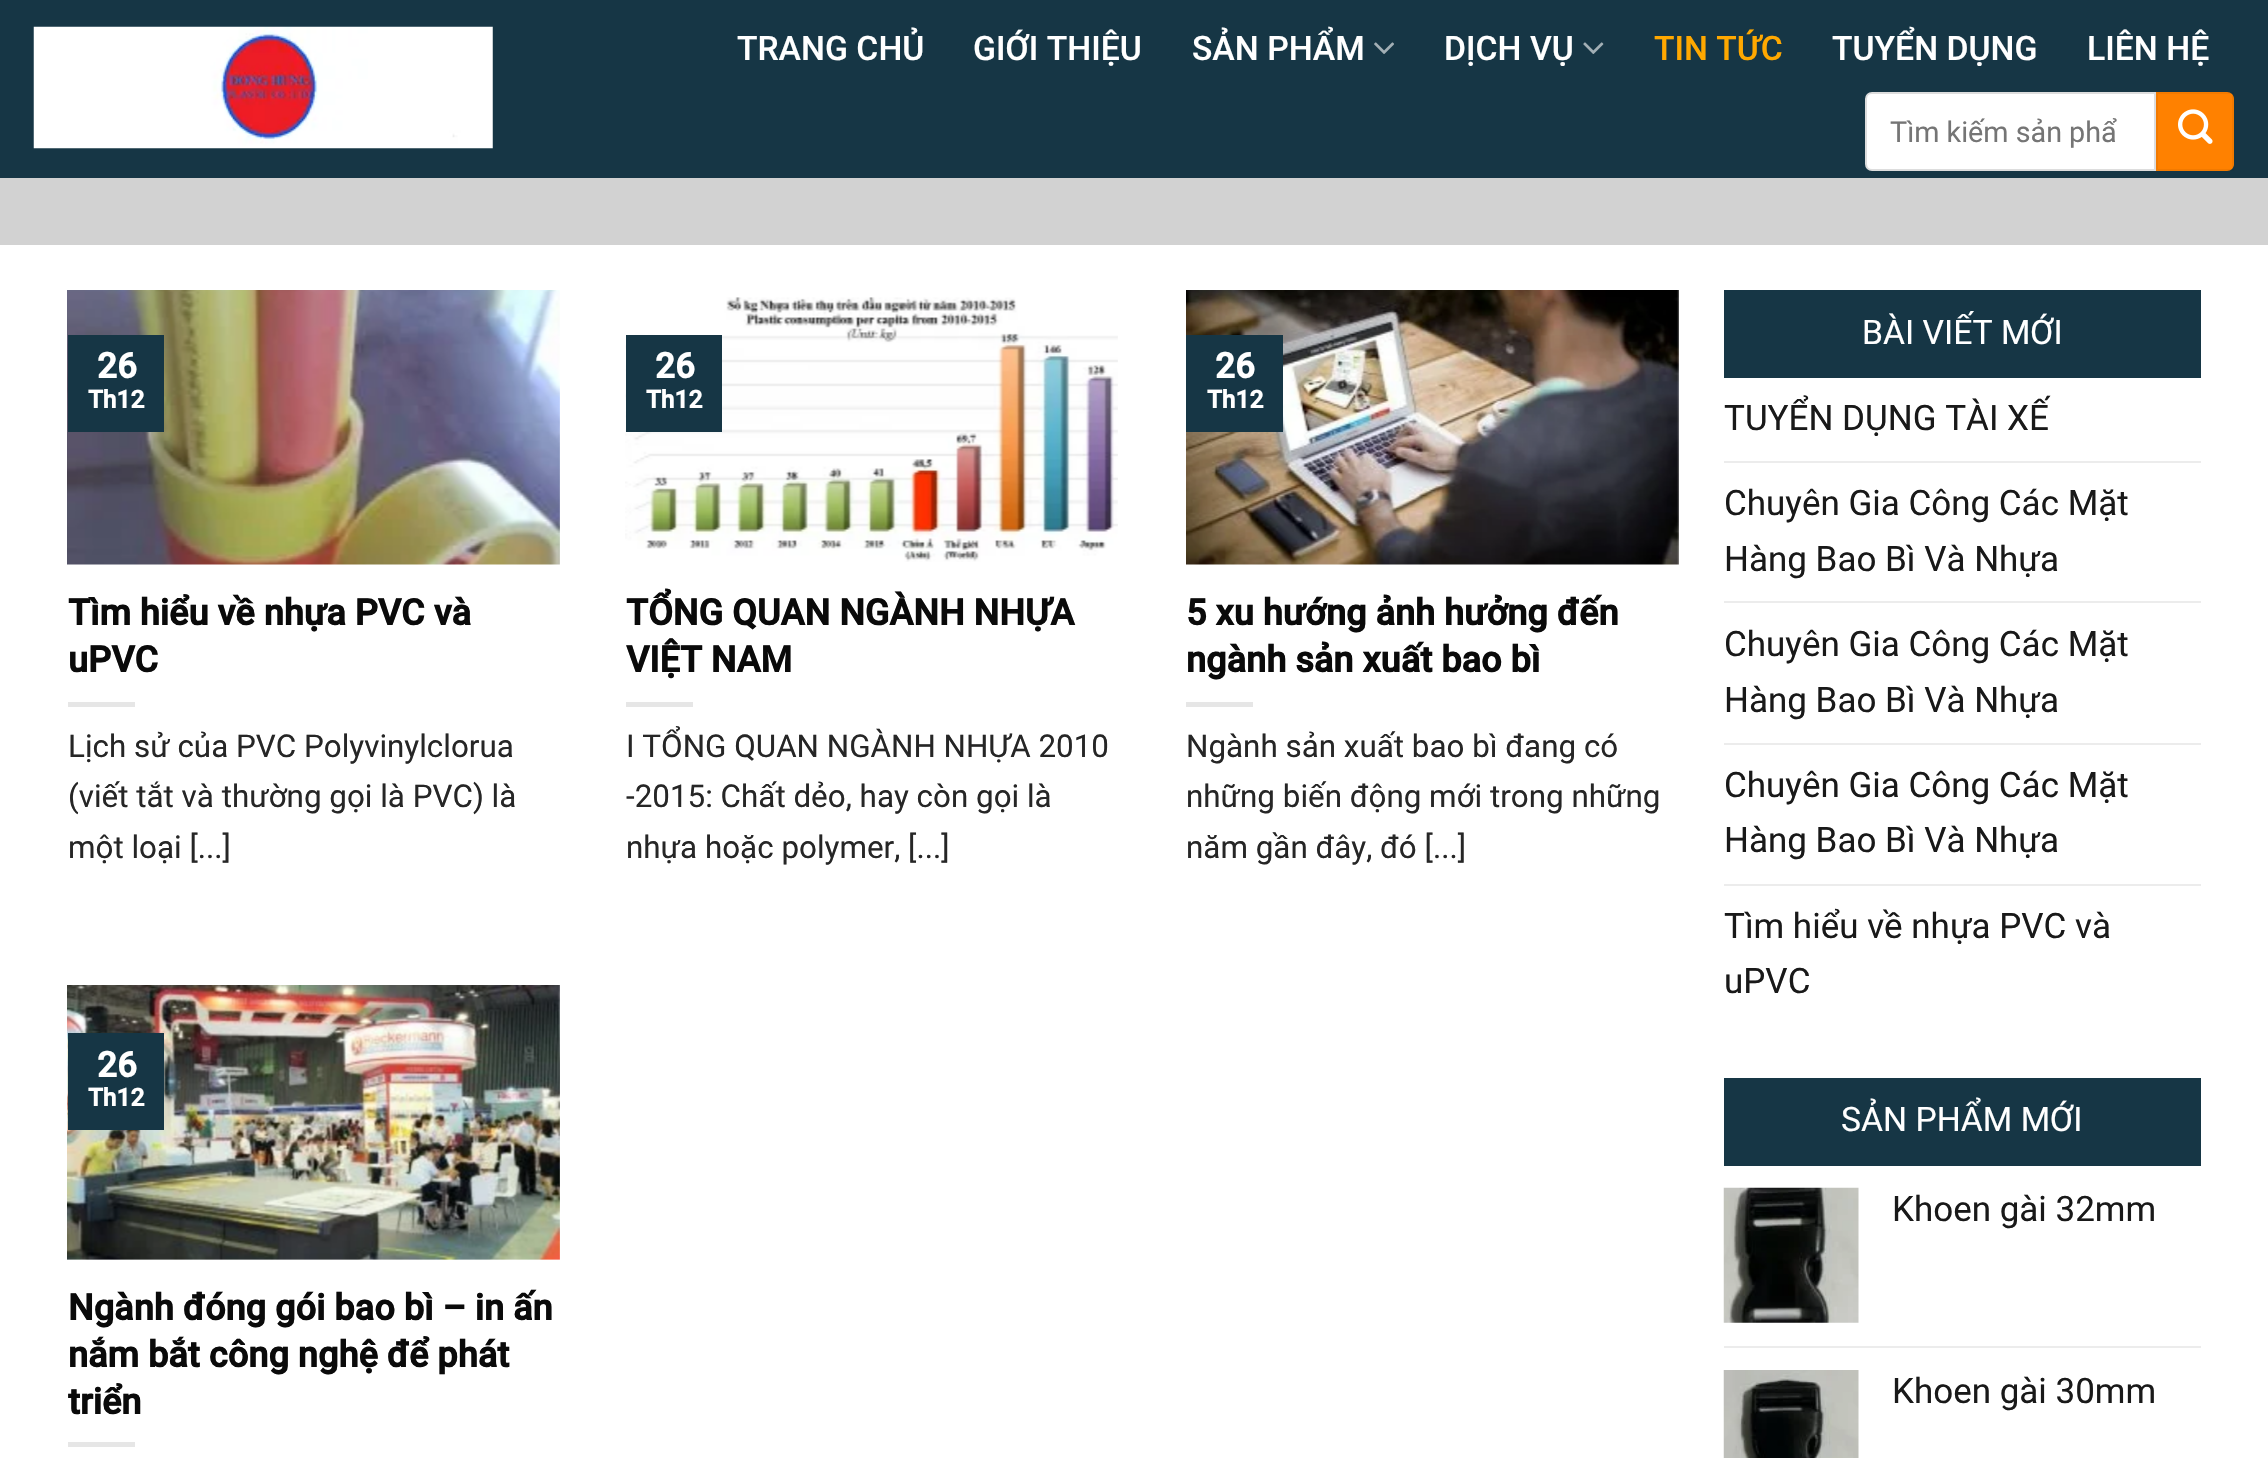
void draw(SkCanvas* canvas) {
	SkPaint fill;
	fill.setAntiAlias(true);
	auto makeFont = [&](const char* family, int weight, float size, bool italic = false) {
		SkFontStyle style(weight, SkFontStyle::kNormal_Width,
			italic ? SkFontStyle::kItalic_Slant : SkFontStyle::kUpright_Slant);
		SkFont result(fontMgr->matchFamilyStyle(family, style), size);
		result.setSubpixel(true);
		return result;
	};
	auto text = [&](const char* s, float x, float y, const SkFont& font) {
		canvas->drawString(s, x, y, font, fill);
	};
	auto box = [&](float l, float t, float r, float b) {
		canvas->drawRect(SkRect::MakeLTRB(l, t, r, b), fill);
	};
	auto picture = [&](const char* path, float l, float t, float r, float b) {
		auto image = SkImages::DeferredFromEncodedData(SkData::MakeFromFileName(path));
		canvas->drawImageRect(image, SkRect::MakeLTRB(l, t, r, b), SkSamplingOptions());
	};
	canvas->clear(0xFFD2D2D2);
	fill.setColor(0xFF163645);
	box(0, 0, 2268, 178);
	picture("image0.png", 33, 26, 493, 149);
	picture("image1.png", 1374, 42, 1394, 54);
	picture("image2.png", 1583, 42, 1604, 54);
	fill.setColor(0xFFFFFFFF);
	canvas->drawPath(SkPathBuilder().moveTo(1872, 93).lineTo(2155, 93).lineTo(2155, 170).lineTo(1872, 170).cubicTo(1868.5f, 170, 1866, 167.5f, 1866, 164).lineTo(1866, 99).cubicTo(1866, 95.5f, 1868.5f, 93, 1872, 93).close().detach(), fill);
	fill.setStyle(SkPaint::kStroke_Style);
	fill.setStrokeWidth(2);
	fill.setColor(0xFFDDDDDD);
	canvas->drawPath(SkPathBuilder().moveTo(1872, 93).lineTo(2155, 93).lineTo(2155, 170).lineTo(1872, 170).cubicTo(1868.5f, 170, 1866, 167.5f, 1866, 164).lineTo(1866, 99).cubicTo(1866, 95.5f, 1868.5f, 93, 1872, 93).close().detach(), fill);
	fill.setStyle(SkPaint::kFill_Style);
	fill.setColor(0xFFFF8100);
	canvas->drawPath(SkPathBuilder().moveTo(2156, 92).lineTo(2227, 92).cubicTo(2231, 92, 2234, 95, 2234, 99).lineTo(2234, 164).cubicTo(2234, 168, 2231, 171, 2227, 171).lineTo(2156, 171).close().detach(), fill);
	fill.setStyle(SkPaint::kStroke_Style);
	fill.setColor(0x0D000000);
	canvas->drawRect(SkRect::MakeLTRB(2157, 93, 2233, 170), fill);
	picture("image3.png", 2178, 109, 2213, 144);
	fill.setStyle(SkPaint::kFill_Style);
	fill.setColor(0xFFFFFFFF);
	box(0, 245, 2268, 1458);
	picture("image4.png", 67, 290, 560, 565);
	fill.setColor(0xFF163645);
	box(68, 335, 164, 432);
	fill.setColor(0xFFE6E6E6);
	box(68, 702, 135, 707);
	picture("image5.png", 625, 297, 1118, 562);
	fill.setColor(0xFF163645);
	box(626, 335, 722, 432);
	fill.setColor(0xFFE6E6E6);
	box(626, 702, 693, 707);
	picture("image6.png", 1186, 290, 1679, 565);
	fill.setColor(0xFF163645);
	box(1186, 335, 1283, 432);
	fill.setColor(0xFFE6E6E6);
	box(1186, 702, 1253, 707);
	picture("image7.png", 67, 985, 560, 1260);
	fill.setColor(0xFF163645);
	box(68, 1033, 164, 1130);
	fill.setColor(0xFFE6E6E6);
	box(68, 1442, 135, 1447);
	fill.setColor(0xFF163645);
	box(1724, 290, 2201, 378);
	fill.setColor(0xFFECECEC);
	box(1724, 461, 2201, 463);
	box(1724, 601, 2201, 603);
	box(1724, 743, 2201, 745);
	box(1724, 884, 2201, 886);
	fill.setColor(0xFF163645);
	box(1724, 1078, 2201, 1166);
	picture("image8.png", 1723, 1187, 1859, 1323);
	fill.setColor(0xFFECECEC);
	box(1724, 1346, 2201, 1348);
	picture("image9.png", 1723, 1370, 1859, 1458);
	auto font1 = makeFont("Roboto", 500, 33.75f);
	fill.setColor(0xFFFFFFFF);
	text("TRANG CHỦ", 737, 60, font1);
	text("GIỚI THIỆU", 973, 60, font1);
	text("SẢN PHẨM", 1192, 60, font1);
	text("DỊCH VỤ", 1444, 60, font1);
	fill.setColor(0xFFFFA800);
	text("TIN TỨC", 1654, 60, font1);
	fill.setColor(0xFFFFFFFF);
	text("TUYỂN DỤNG", 1832, 60, font1);
	text("LIÊN HỆ", 2087, 60, font1);
	auto font2 = makeFont("Roboto", 400, 28.75f);
	fill.setColor(0xFF757575);
	text("Tìm kiếm sản phẩ", 1890, 142, font2);
	auto font3 = makeFont("Roboto", 700, 35);
	fill.setColor(0xFFFFFFFF);
	text("26", 97, 378, font3);
	auto font4 = makeFont("Roboto", 700, 24.5f);
	text("Th12", 88, 408, font4);
	auto font5 = makeFont("Roboto", 700, 36.1f);
	fill.setColor(0xFF0A0A0A);
	text("Tìm hiểu về nhựa PVC và", 68, 625, font5);
	text("uPVC", 68, 672, font5);
	auto font6 = makeFont("Roboto", 400, 31.4f);
	fill.setColor(0xFF262626);
	text("Lịch sử của PVC Polyvinylclorua", 68, 757, font6);
	text("(viết tắt và thường gọi là PVC) là", 68, 807, font6);
	text("một loại [...]", 68, 858, font6);
	fill.setColor(0xFFFFFFFF);
	text("26", 655, 378, font3);
	text("Th12", 646, 408, font4);
	fill.setColor(0xFF0A0A0A);
	text("TỔNG QUAN NGÀNH NHỰA", 626, 625, font5);
	text("VIỆT NAM", 626, 672, font5);
	fill.setColor(0xFF262626);
	text("I TỔNG QUAN NGÀNH NHỰA 2010", 626, 757, font6);
	text("-2015: Chất dẻo, hay còn gọi là", 626, 807, font6);
	text("nhựa hoặc polymer, [...]", 626, 858, font6);
	fill.setColor(0xFFFFFFFF);
	text("26", 1215, 378, font3);
	text("Th12", 1207, 408, font4);
	fill.setColor(0xFF0A0A0A);
	text("5 xu hướng ảnh hưởng đến", 1186, 625, font5);
	text("ngành sản xuất bao bì", 1186, 672, font5);
	fill.setColor(0xFF262626);
	text("Ngành sản xuất bao bì đang có", 1186, 757, font6);
	text("những biến động mới trong những", 1186, 807, font6);
	text("năm gần đây, đó [...]", 1186, 858, font6);
	fill.setColor(0xFFFFFFFF);
	text("26", 97, 1077, font3);
	text("Th12", 88, 1106, font4);
	fill.setColor(0xFF0A0A0A);
	text("Ngành đóng gói bao bì – in ấn", 68, 1320, font5);
	text("nắm bắt công nghệ để phát", 68, 1367, font5);
	text("triển", 68, 1414, font5);
	auto font7 = makeFont("Roboto", 400, 33.75f);
	fill.setColor(0xFFFFFFFF);
	text("BÀI VIẾT MỚI", 1862, 344, font7);
	auto font8 = makeFont("Roboto", 400, 35);
	fill.setColor(0xFF191919);
	text("TUYỂN DỤNG TÀI XẾ", 1724, 430, font8);
	text("Chuyên Gia Công Các Mặt", 1724, 515, font8);
	text("Hàng Bao Bì Và Nhựa", 1724, 571, font8);
	text("Chuyên Gia Công Các Mặt", 1724, 656, font8);
	text("Hàng Bao Bì Và Nhựa", 1724, 712, font8);
	text("Chuyên Gia Công Các Mặt", 1724, 797, font8);
	text("Hàng Bao Bì Và Nhựa", 1724, 852, font8);
	text("Tìm hiểu về nhựa PVC và", 1724, 938, font8);
	text("uPVC", 1724, 993, font8);
	fill.setColor(0xFFFFFFFF);
	text("SẢN PHẨM MỚI", 1841, 1131, font7);
	fill.setColor(0xFF191919);
	text("Khoen gài 32mm", 1892, 1221, font8);
	text("Khoen gài 30mm", 1892, 1403, font8);
}
